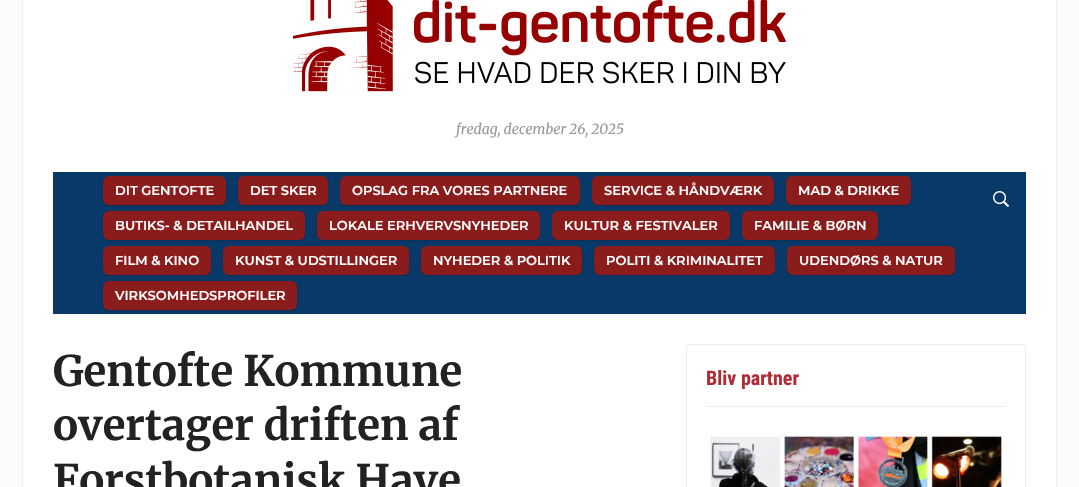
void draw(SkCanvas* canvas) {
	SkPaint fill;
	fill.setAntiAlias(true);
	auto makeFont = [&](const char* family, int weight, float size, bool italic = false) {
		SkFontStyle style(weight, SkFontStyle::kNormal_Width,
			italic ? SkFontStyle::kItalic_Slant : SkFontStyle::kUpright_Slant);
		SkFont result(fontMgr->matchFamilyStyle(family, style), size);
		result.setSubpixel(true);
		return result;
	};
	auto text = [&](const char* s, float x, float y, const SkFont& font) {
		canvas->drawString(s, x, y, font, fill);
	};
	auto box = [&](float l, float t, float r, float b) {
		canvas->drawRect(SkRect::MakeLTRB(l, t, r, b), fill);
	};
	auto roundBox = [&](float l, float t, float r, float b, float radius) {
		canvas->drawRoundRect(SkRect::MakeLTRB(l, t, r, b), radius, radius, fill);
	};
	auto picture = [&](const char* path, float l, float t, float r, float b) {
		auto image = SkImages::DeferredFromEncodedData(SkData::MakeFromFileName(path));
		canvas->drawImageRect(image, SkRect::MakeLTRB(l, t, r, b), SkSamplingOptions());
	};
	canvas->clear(0xFFFBFBFB);
	fill.setColor(0xFFFFFFFF);
	box(23, 0, 1056, 487);
	fill.setColor(0xFFEEEEEE);
	box(1056, 0, 1057, 487);
	box(22, 0, 23, 487);
	picture("image0.png", 292, 0, 786, 92);
	fill.setColor(0xFF093969);
	box(53, 172, 1026, 314);
	fill.setColor(0x33000000);
	fill.setMaskFilter(SkMaskFilter::MakeBlur(kNormal_SkBlurStyle, 1.5f));
	canvas->drawRoundRect(SkRect::MakeLTRB(103, 177, 226, 206), 6, 6, fill);
	fill.setMaskFilter(nullptr);
	fill.setColor(0xFF8B1C1C);
	roundBox(103, 176, 226, 205, 6);
	fill.setColor(0x33000000);
	fill.setMaskFilter(SkMaskFilter::MakeBlur(kNormal_SkBlurStyle, 1.5f));
	canvas->drawRoundRect(SkRect::MakeLTRB(238, 177, 328, 206), 6, 6, fill);
	fill.setMaskFilter(nullptr);
	fill.setColor(0xFF8B1C1C);
	roundBox(238, 176, 328, 205, 6);
	fill.setColor(0x33000000);
	fill.setMaskFilter(SkMaskFilter::MakeBlur(kNormal_SkBlurStyle, 1.5f));
	canvas->drawRoundRect(SkRect::MakeLTRB(340, 177, 580, 206), 6, 6, fill);
	fill.setMaskFilter(nullptr);
	fill.setColor(0xFF8B1C1C);
	roundBox(340, 176, 580, 205, 6);
	fill.setColor(0x33000000);
	fill.setMaskFilter(SkMaskFilter::MakeBlur(kNormal_SkBlurStyle, 1.5f));
	canvas->drawRoundRect(SkRect::MakeLTRB(592, 177, 774, 206), 6, 6, fill);
	fill.setMaskFilter(nullptr);
	fill.setColor(0xFF8B1C1C);
	roundBox(592, 176, 774, 205, 6);
	fill.setColor(0x33000000);
	fill.setMaskFilter(SkMaskFilter::MakeBlur(kNormal_SkBlurStyle, 1.5f));
	canvas->drawRoundRect(SkRect::MakeLTRB(786, 177, 911, 206), 6, 6, fill);
	fill.setMaskFilter(nullptr);
	fill.setColor(0xFF8B1C1C);
	roundBox(786, 176, 911, 205, 6);
	fill.setColor(0x33000000);
	fill.setMaskFilter(SkMaskFilter::MakeBlur(kNormal_SkBlurStyle, 1.5f));
	canvas->drawRoundRect(SkRect::MakeLTRB(103, 212, 305, 241), 6, 6, fill);
	fill.setMaskFilter(nullptr);
	fill.setColor(0xFF8B1C1C);
	roundBox(103, 211, 305, 240, 6);
	fill.setColor(0x33000000);
	fill.setMaskFilter(SkMaskFilter::MakeBlur(kNormal_SkBlurStyle, 1.5f));
	canvas->drawRoundRect(SkRect::MakeLTRB(317, 212, 540, 241), 6, 6, fill);
	fill.setMaskFilter(nullptr);
	fill.setColor(0xFF8B1C1C);
	roundBox(317, 211, 540, 240, 6);
	fill.setColor(0x33000000);
	fill.setMaskFilter(SkMaskFilter::MakeBlur(kNormal_SkBlurStyle, 1.5f));
	canvas->drawRoundRect(SkRect::MakeLTRB(552, 212, 730, 241), 6, 6, fill);
	fill.setMaskFilter(nullptr);
	fill.setColor(0xFF8B1C1C);
	roundBox(552, 211, 730, 240, 6);
	fill.setColor(0x33000000);
	fill.setMaskFilter(SkMaskFilter::MakeBlur(kNormal_SkBlurStyle, 1.5f));
	canvas->drawRoundRect(SkRect::MakeLTRB(742, 212, 878, 241), 6, 6, fill);
	fill.setMaskFilter(nullptr);
	fill.setColor(0xFF8B1C1C);
	roundBox(742, 211, 878, 240, 6);
	fill.setColor(0x33000000);
	fill.setMaskFilter(SkMaskFilter::MakeBlur(kNormal_SkBlurStyle, 1.5f));
	canvas->drawRoundRect(SkRect::MakeLTRB(103, 247, 211, 276), 6, 6, fill);
	fill.setMaskFilter(nullptr);
	fill.setColor(0xFF8B1C1C);
	roundBox(103, 246, 211, 275, 6);
	fill.setColor(0x33000000);
	fill.setMaskFilter(SkMaskFilter::MakeBlur(kNormal_SkBlurStyle, 1.5f));
	canvas->drawRoundRect(SkRect::MakeLTRB(223, 247, 409, 276), 6, 6, fill);
	fill.setMaskFilter(nullptr);
	fill.setColor(0xFF8B1C1C);
	roundBox(223, 246, 409, 275, 6);
	fill.setColor(0x33000000);
	fill.setMaskFilter(SkMaskFilter::MakeBlur(kNormal_SkBlurStyle, 1.5f));
	canvas->drawRoundRect(SkRect::MakeLTRB(421, 247, 582, 276), 6, 6, fill);
	fill.setMaskFilter(nullptr);
	fill.setColor(0xFF8B1C1C);
	roundBox(421, 246, 582, 275, 6);
	fill.setColor(0x33000000);
	fill.setMaskFilter(SkMaskFilter::MakeBlur(kNormal_SkBlurStyle, 1.5f));
	canvas->drawRoundRect(SkRect::MakeLTRB(594, 247, 775, 276), 6, 6, fill);
	fill.setMaskFilter(nullptr);
	fill.setColor(0xFF8B1C1C);
	roundBox(594, 246, 775, 275, 6);
	fill.setColor(0x33000000);
	fill.setMaskFilter(SkMaskFilter::MakeBlur(kNormal_SkBlurStyle, 1.5f));
	canvas->drawRoundRect(SkRect::MakeLTRB(787, 247, 955, 276), 6, 6, fill);
	fill.setMaskFilter(nullptr);
	fill.setColor(0xFF8B1C1C);
	roundBox(787, 246, 955, 275, 6);
	fill.setColor(0x33000000);
	fill.setMaskFilter(SkMaskFilter::MakeBlur(kNormal_SkBlurStyle, 1.5f));
	canvas->drawRoundRect(SkRect::MakeLTRB(103, 282, 297, 311), 6, 6, fill);
	fill.setMaskFilter(nullptr);
	fill.setColor(0xFF8B1C1C);
	roundBox(103, 281, 297, 310, 6);
	picture("image1.png", 993, 191, 1009, 207);
	fill.setColor(0xFFEEEEEE);
	canvas->drawPath(SkPathBuilder().moveTo(691, 344).cubicTo(690, 344, 688, 344, 687, 345).lineTo(688, 346).lineTo(691, 345).lineTo(1021, 345).lineTo(1024, 346).lineTo(1025, 345).cubicTo(1024, 344, 1022, 344, 1021, 344).close().detach(), fill);
	canvas->drawPath(SkPathBuilder().moveTo(1026, 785).lineTo(1026, 349).cubicTo(1026, 348, 1026, 346, 1025, 345).lineTo(1024, 346).lineTo(1025, 349).lineTo(1025, 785).lineTo(1025, 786).lineTo(1025, 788).close().detach(), fill);
	canvas->drawPath(SkPathBuilder().moveTo(686, 349).lineTo(686, 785).lineTo(687, 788).lineTo(687, 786).lineTo(687, 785).lineTo(687, 349).lineTo(688, 346).lineTo(687, 345).cubicTo(686, 346, 686, 348, 686, 349).close().detach(), fill);
	box(706, 406, 1006, 407);
	picture("image2.png", 706, 432, 1002, 487);
	auto font1 = makeFont("Merriweather", 400, 14, true);
	fill.setColor(0xFF999999);
	text("fredag, december 26, 2025", 456, 134, font1);
	auto font2 = makeFont("Montserrat", 600, 13);
	fill.setColor(0xFFFFFFFF);
	text("DIT GENTOFTE", 115, 195, font2);
	text("DET SKER", 250, 195, font2);
	text("OPSLAG FRA VORES PARTNERE", 352, 195, font2);
	text("SERVICE & HÅNDVÆRK", 604, 195, font2);
	text("MAD & DRIKKE", 798, 195, font2);
	text("BUTIKS- & DETAILHANDEL", 115, 230, font2);
	text("LOKALE ERHVERVSNYHEDER", 329, 230, font2);
	text("KULTUR & FESTIVALER", 564, 230, font2);
	text("FAMILIE & BØRN", 754, 230, font2);
	text("FILM & KINO", 115, 265, font2);
	text("KUNST & UDSTILLINGER", 235, 265, font2);
	text("NYHEDER & POLITIK", 433, 265, font2);
	text("POLITI & KRIMINALITET", 606, 265, font2);
	text("UDENDØRS & NATUR", 799, 265, font2);
	text("VIRKSOMHEDSPROFILER", 115, 300, font2);
	auto font3 = makeFont("Merriweather", 700, 42);
	fill.setColor(0xFF222222);
	text("Gentofte Kommune", 53, 386, font3);
	text("overtager driften af", 53, 440, font3);
	text("Forstbotanisk Have", 53, 495, font3);
	auto font4 = makeFont("Roboto Condensed", 700, 20);
	fill.setColor(0xFFB02B33);
	text("Bliv partner", 706, 385, font4);
}
